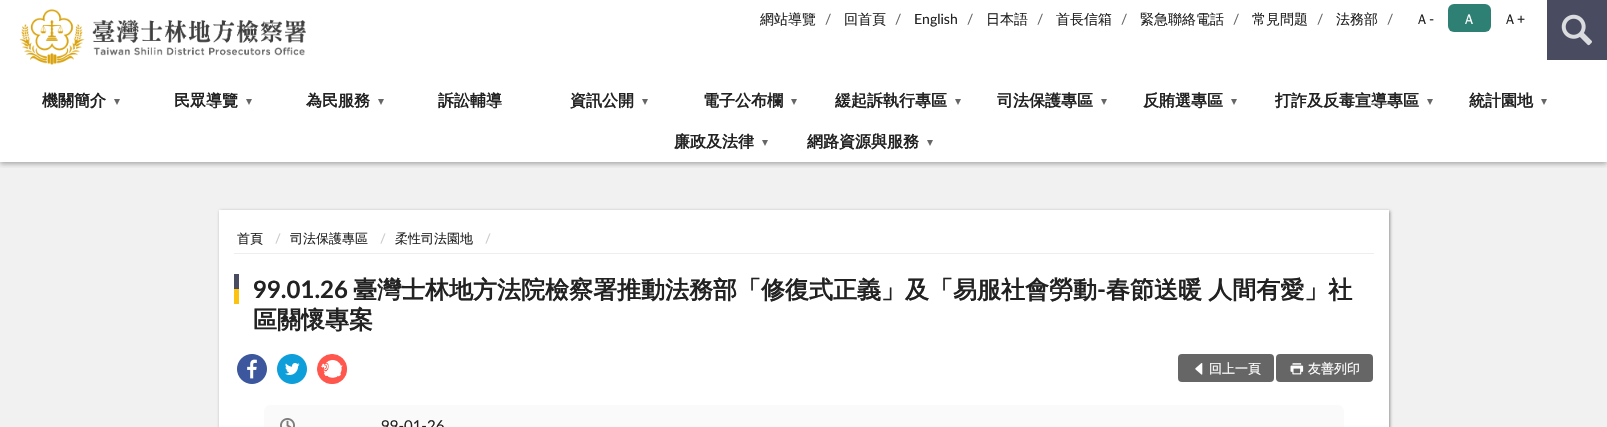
void draw(SkCanvas* canvas) {
	SkPaint fill;
	fill.setAntiAlias(true);
	auto makeFont = [&](const char* family, int weight, float size, bool italic = false) {
		SkFontStyle style(weight, SkFontStyle::kNormal_Width,
			italic ? SkFontStyle::kItalic_Slant : SkFontStyle::kUpright_Slant);
		SkFont result(fontMgr->matchFamilyStyle(family, style), size);
		result.setSubpixel(true);
		return result;
	};
	auto text = [&](const char* s, float x, float y, const SkFont& font) {
		canvas->drawString(s, x, y, font, fill);
	};
	auto spacedText = [&](const char* s, float x, float y, const SkFont& font, const SkPaint& ink, float letter, float word) {
		std::vector<SkGlyphID> glyphs(font.countText(s, strlen(s), SkTextEncoding::kUTF8));
		std::vector<float> xs(glyphs.size());
		font.textToGlyphs(s, strlen(s), SkTextEncoding::kUTF8, glyphs);
		font.getXPos(glyphs, xs, x);
		float extra = 0;
		for (size_t i = 0; i < glyphs.size(); i++) {
			xs[i] += extra;
			extra += letter + word * (glyphs[i] == font.unicharToGlyph(' '));
		}
		canvas->drawTextBlob(SkTextBlob::MakeFromPosHGlyphs(glyphs, xs, y, font), 0, 0, ink);
	};
	auto box = [&](float l, float t, float r, float b) {
		canvas->drawRect(SkRect::MakeLTRB(l, t, r, b), fill);
	};
	auto roundBox = [&](float l, float t, float r, float b, float radius) {
		canvas->drawRoundRect(SkRect::MakeLTRB(l, t, r, b), radius, radius, fill);
	};
	auto picture = [&](const char* path, float l, float t, float r, float b) {
		auto image = SkImages::DeferredFromEncodedData(SkData::MakeFromFileName(path));
		canvas->drawImageRect(image, SkRect::MakeLTRB(l, t, r, b), SkSamplingOptions());
	};
	canvas->clear(0xFFFFFFFF);
	fill.setColor(0xFFF1F1F1);
	box(0, 162, 1607, 427);
	canvas->save();
	canvas->clipRect(SkRect::MakeLTRB(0, 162, 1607, 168));
	fill.setColor(0x4D000000);
	fill.setMaskFilter(SkMaskFilter::MakeBlur(kNormal_SkBlurStyle, 2.5f));
	canvas->drawRect(SkRect::MakeLTRB(0, 2, 1607, 164), fill);
	fill.setMaskFilter(nullptr);
	canvas->restore();
	picture("image0.png", 19, 9, 306, 65);
	fill.setColor(0xFF2D8073);
	roundBox(1448, 4, 1491, 32, 6);
	fill.setColor(0xFF494C61);
	box(1547, 0, 1607, 60);
	picture("image1.png", 1561, 14, 1592, 46);
	fill.setColor(0xFF666666);
	canvas->drawPath(SkPathBuilder().moveTo(114, 99).lineTo(120, 99).lineTo(117, 105).close().detach(), fill);
	canvas->drawPath(SkPathBuilder().moveTo(246, 99).lineTo(252, 99).lineTo(249, 105).close().detach(), fill);
	canvas->drawPath(SkPathBuilder().moveTo(378, 99).lineTo(384, 99).lineTo(381, 105).close().detach(), fill);
	canvas->drawPath(SkPathBuilder().moveTo(642, 99).lineTo(648, 99).lineTo(645, 105).close().detach(), fill);
	canvas->drawPath(SkPathBuilder().moveTo(791, 99).lineTo(797, 99).lineTo(794, 105).close().detach(), fill);
	canvas->drawPath(SkPathBuilder().moveTo(955, 99).lineTo(961, 99).lineTo(958, 105).close().detach(), fill);
	canvas->drawPath(SkPathBuilder().moveTo(1101, 99).lineTo(1107, 99).lineTo(1104, 105).close().detach(), fill);
	canvas->drawPath(SkPathBuilder().moveTo(1231, 99).lineTo(1237, 99).lineTo(1234, 105).close().detach(), fill);
	canvas->drawPath(SkPathBuilder().moveTo(1427, 99).lineTo(1433, 99).lineTo(1430, 105).close().detach(), fill);
	canvas->drawPath(SkPathBuilder().moveTo(1541, 99).lineTo(1547, 99).lineTo(1544, 105).close().detach(), fill);
	canvas->drawPath(SkPathBuilder().moveTo(762, 140).lineTo(768, 140).lineTo(765, 146).close().detach(), fill);
	canvas->drawPath(SkPathBuilder().moveTo(927, 140).lineTo(933, 140).lineTo(930, 146).close().detach(), fill);
	fill.setColor(0x66000000);
	fill.setMaskFilter(SkMaskFilter::MakeBlur(kNormal_SkBlurStyle, 1.5f));
	canvas->drawRect(SkRect::MakeLTRB(220, 211, 1390, 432), fill);
	fill.setMaskFilter(nullptr);
	fill.setColor(0xFFFFFFFF);
	box(219, 210, 1389, 427);
	fill.setColor(0xFFEEEEEE);
	box(234, 253, 1374, 254);
	fill.setColor(0xFF494C61);
	box(234, 274, 239, 289);
	fill.setColor(0xFFFCC211);
	box(234, 289, 239, 304);
	picture("image2.png", 237, 354, 267, 384);
	picture("image3.png", 277, 354, 307, 384);
	picture("image4.png", 317, 354, 347, 384);
	fill.setColor(0xFF666666);
	roundBox(1178, 354, 1274, 382, 4);
	picture("image5.png", 1195, 363, 1203, 375);
	roundBox(1276, 354, 1373, 382, 4);
	picture("image6.png", 1290, 363, 1304, 375);
	fill.setColor(0xFFFAFAFA);
	roundBox(264, 405, 1344, 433, 6);
	picture("image7.png", 280, 418, 295, 427);
	auto font1 = makeFont("WenQuanYi Zen Hei", 500, 14);
	fill.setColor(0xFF222222);
	text("網站導覽", 760, 24, font1);
	auto font2 = makeFont("Lato", 400, 14);
	fill.setColor(0xFF666666);
	text("/", 825, 24, font2);
	fill.setColor(0xFF222222);
	text("回首頁", 844, 24, font1);
	fill.setColor(0xFF666666);
	text("/", 895, 24, font2);
	fill.setColor(0xFF222222);
	text("English", 914, 24, font2);
	fill.setColor(0xFF666666);
	text("/", 967, 24, font2);
	fill.setColor(0xFF222222);
	text("日本語", 986, 24, font1);
	fill.setColor(0xFF666666);
	text("/", 1037, 24, font2);
	fill.setColor(0xFF222222);
	text("首長信箱", 1056, 24, font1);
	fill.setColor(0xFF666666);
	text("/", 1121, 24, font2);
	fill.setColor(0xFF222222);
	text("緊急聯絡電話", 1140, 24, font1);
	fill.setColor(0xFF666666);
	text("/", 1233, 24, font2);
	fill.setColor(0xFF222222);
	text("常見問題", 1252, 24, font1);
	fill.setColor(0xFF666666);
	text("/", 1317, 24, font2);
	fill.setColor(0xFF222222);
	text("法務部", 1336, 24, font1);
	fill.setColor(0xFF666666);
	text("/", 1387, 24, font2);
	fill.setColor(0xFF222222);
	text("Ａ", 1415, 24, font1);
	text("-", 1429, 24, font2);
	fill.setColor(0xFFFFFFFF);
	text("Ａ", 1462, 24, font1);
	fill.setColor(0xFF222222);
	text("Ａ", 1503, 24, font1);
	text("+", 1517, 24, font2);
	auto font3 = makeFont("WenQuanYi Zen Hei", 700, 16);
	text("機關簡介", 42, 106, font3);
	text("民眾導覽", 174, 106, font3);
	text("為民服務", 306, 106, font3);
	text("訴訟輔導", 438, 106, font3);
	text("資訊公開", 570, 106, font3);
	text("電子公布欄", 703, 106, font3);
	text("緩起訴執行專區", 835, 106, font3);
	text("司法保護專區", 997, 106, font3);
	text("反賄選專區", 1143, 106, font3);
	text("打詐及反毒宣導專區", 1275, 106, font3);
	text("統計園地", 1469, 106, font3);
	text("廉政及法律", 674, 147, font3);
	text("網路資源與服務", 807, 147, font3);
	auto font4 = makeFont("WenQuanYi Zen Hei", 500, 13);
	text("首頁", 237, 243, font4);
	auto font5 = makeFont("Lato", 400, 13);
	fill.setColor(0xFFCCCCCC);
	text("/", 275, 243, font5);
	fill.setColor(0xFF222222);
	text("司法保護專區", 290, 243, font4);
	fill.setColor(0xFFCCCCCC);
	text("/", 380, 243, font5);
	fill.setColor(0xFF222222);
	text("柔性司法園地", 395, 243, font4);
	fill.setColor(0xFFCCCCCC);
	text("/", 485, 243, font5);
	auto font6 = makeFont("Lato", 700, 24);
	fill.setColor(0xFF222222);
	text("99.01.26", 253, 298, font6);
	auto font7 = makeFont("WenQuanYi Zen Hei", 700, 24);
	text("臺灣士林地方法院檢察署推動法務部「修復式正義」及「易服社會勞動", 353, 298, font7);
	spacedText("春節送暖 人間有愛」社", 1106, 298, font7, fill, 0, -1);
	text("-", 1097, 298, font6);
	text("區關懷專案", 253, 328, font7);
	fill.setColor(0xFFFFFFFF);
	text("回上一頁", 1209, 373, font4);
	text("友善列印", 1308, 373, font4);
	auto font8 = makeFont("Lato", 400, 15);
	fill.setColor(0xFF222222);
	text("99-01-26", 381, 431, font8);
}
